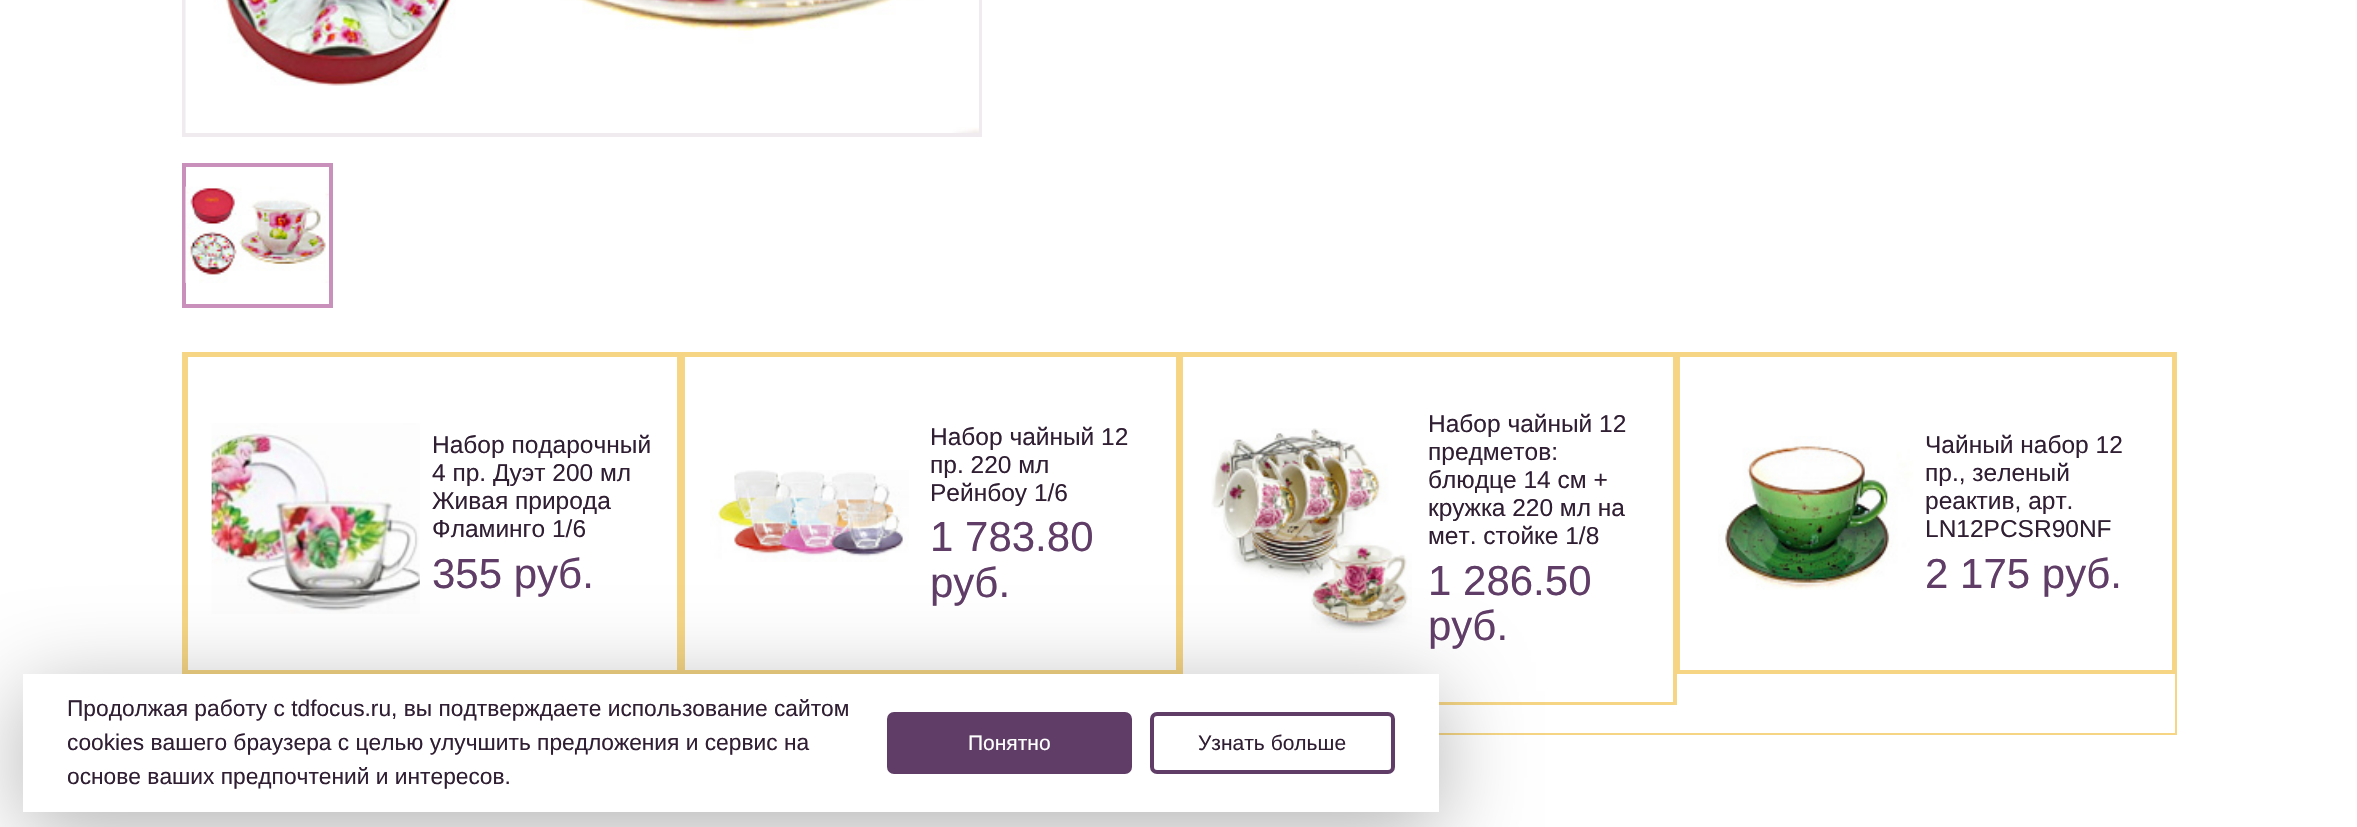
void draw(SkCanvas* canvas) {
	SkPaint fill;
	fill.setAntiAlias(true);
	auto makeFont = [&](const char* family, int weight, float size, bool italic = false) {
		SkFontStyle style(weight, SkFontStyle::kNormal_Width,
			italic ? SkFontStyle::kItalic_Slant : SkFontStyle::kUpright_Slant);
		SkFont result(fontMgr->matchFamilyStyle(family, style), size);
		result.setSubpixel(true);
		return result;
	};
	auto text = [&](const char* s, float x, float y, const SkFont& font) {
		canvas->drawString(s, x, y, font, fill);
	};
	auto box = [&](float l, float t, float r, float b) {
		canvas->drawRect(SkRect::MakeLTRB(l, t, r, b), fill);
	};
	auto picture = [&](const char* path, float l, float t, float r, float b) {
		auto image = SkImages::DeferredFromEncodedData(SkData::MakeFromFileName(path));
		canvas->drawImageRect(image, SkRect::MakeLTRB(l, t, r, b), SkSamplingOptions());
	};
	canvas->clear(0xFFFFFFFF);
	fill.setStyle(SkPaint::kStroke_Style);
	fill.setStrokeWidth(4);
	fill.setColor(0xFFEFEBEF);
	canvas->drawRect(SkRect::MakeLTRB(184, -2, 980, 135), fill);
	picture("image0.png", 185, 0, 979, 133);
	fill.setColor(0xFFC890BA);
	canvas->drawRect(SkRect::MakeLTRB(184, 165, 331, 306), fill);
	picture("image1.png", 185, 186, 329, 283);
	fill.setStrokeWidth(2);
	fill.setColor(0xFFF6D685);
	canvas->drawRect(SkRect::MakeLTRB(183, 353, 2176, 734), fill);
	canvas->drawRect(SkRect::MakeLTRB(185, 355, 680, 673), fill);
	canvas->drawRect(SkRect::MakeLTRB(187, 356, 678, 671), fill);
	picture("image2.png", 211, 423, 420, 614);
	canvas->drawRect(SkRect::MakeLTRB(682, 355, 1179, 673), fill);
	canvas->drawRect(SkRect::MakeLTRB(684, 356, 1177, 671), fill);
	picture("image3.png", 710, 470, 909, 562);
	canvas->drawRect(SkRect::MakeLTRB(1181, 355, 1676, 704), fill);
	canvas->drawRect(SkRect::MakeLTRB(1182, 356, 1674, 703), fill);
	picture("image4.png", 1211, 428, 1412, 633);
	canvas->drawRect(SkRect::MakeLTRB(1678, 355, 2174, 673), fill);
	canvas->drawRect(SkRect::MakeLTRB(1679, 356, 2173, 671), fill);
	picture("image5.png", 1718, 436, 1913, 590);
	fill.setStyle(SkPaint::kFill_Style);
	fill.setColor(0x4D000000);
	fill.setMaskFilter(SkMaskFilter::MakeBlur(kNormal_SkBlurStyle, 44));
	canvas->drawRect(SkRect::MakeLTRB(23, 691, 1439, 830), fill);
	fill.setMaskFilter(nullptr);
	fill.setColor(0xFFFFFFFF);
	box(23, 674, 1439, 812);
	fill.setColor(0xFF603D67);
	canvas->drawRoundRect(SkRect::MakeLTRB(889, 714, 1130, 772), 5, 5, fill);
	fill.setStyle(SkPaint::kStroke_Style);
	fill.setStrokeWidth(4);
	canvas->drawRoundRect(SkRect::MakeLTRB(889, 714, 1130, 772), 5, 5, fill);
	canvas->drawRoundRect(SkRect::MakeLTRB(1152, 714, 1393, 772), 5, 5, fill);
	auto font1 = makeFont("Arimo", 400, 24.5f);
	fill.setStyle(SkPaint::kFill_Style);
	fill.setColor(0xFF301E33);
	text("Набор подарочный", 432, 453, font1);
	text("4 пр. Дуэт 200 мл", 432, 481, font1);
	text("Живая природа", 432, 509, font1);
	text("Фламинго 1/6", 432, 537, font1);
	auto font2 = makeFont("Arimo", 400, 42);
	fill.setColor(0xFF603D67);
	text("355 руб.", 432, 588, font2);
	fill.setColor(0xFF301E33);
	text("Набор чайный 12", 930, 445, font1);
	text("пр. 220 мл", 930, 473, font1);
	text("Рейнбоу 1/6", 930, 501, font1);
	fill.setColor(0xFF603D67);
	text("1 783.80", 930, 551, font2);
	text("руб.", 930, 597, font2);
	fill.setColor(0xFF301E33);
	text("Набор чайный 12", 1428, 432, font1);
	text("предметов:", 1428, 460, font1);
	text("блюдце 14 см +", 1428, 488, font1);
	text("кружка 220 мл на", 1428, 516, font1);
	text("мет. стойке 1/8", 1428, 544, font1);
	fill.setColor(0xFF603D67);
	text("1 286.50", 1428, 595, font2);
	text("руб.", 1428, 640, font2);
	fill.setColor(0xFF301E33);
	text("Чайный набор 12", 1925, 453, font1);
	text("пр., зеленый", 1925, 481, font1);
	text("реактив, арт.", 1925, 509, font1);
	text("LN12PCSR90NF", 1925, 537, font1);
	fill.setColor(0xFF603D67);
	text("2 175 руб.", 1925, 588, font2);
	auto font3 = makeFont("Arimo", 400, 22.75f);
	fill.setColor(0xFF301E33);
	text("Продолжая работу с tdfocus.ru, вы подтверждаете использование сайтом", 67, 716, font3);
	text("cookies вашего браузера с целью улучшить предложения и сервис на", 67, 750, font3);
	text("основе ваших предпочтений и интересов.", 67, 784, font3);
	auto font4 = makeFont("Arimo", 400, 21);
	fill.setColor(0xFFFFFFFF);
	text("Понятно", 968, 750, font4);
	fill.setColor(0xFF301E33);
	text("Узнать больше", 1198, 750, font4);
}
